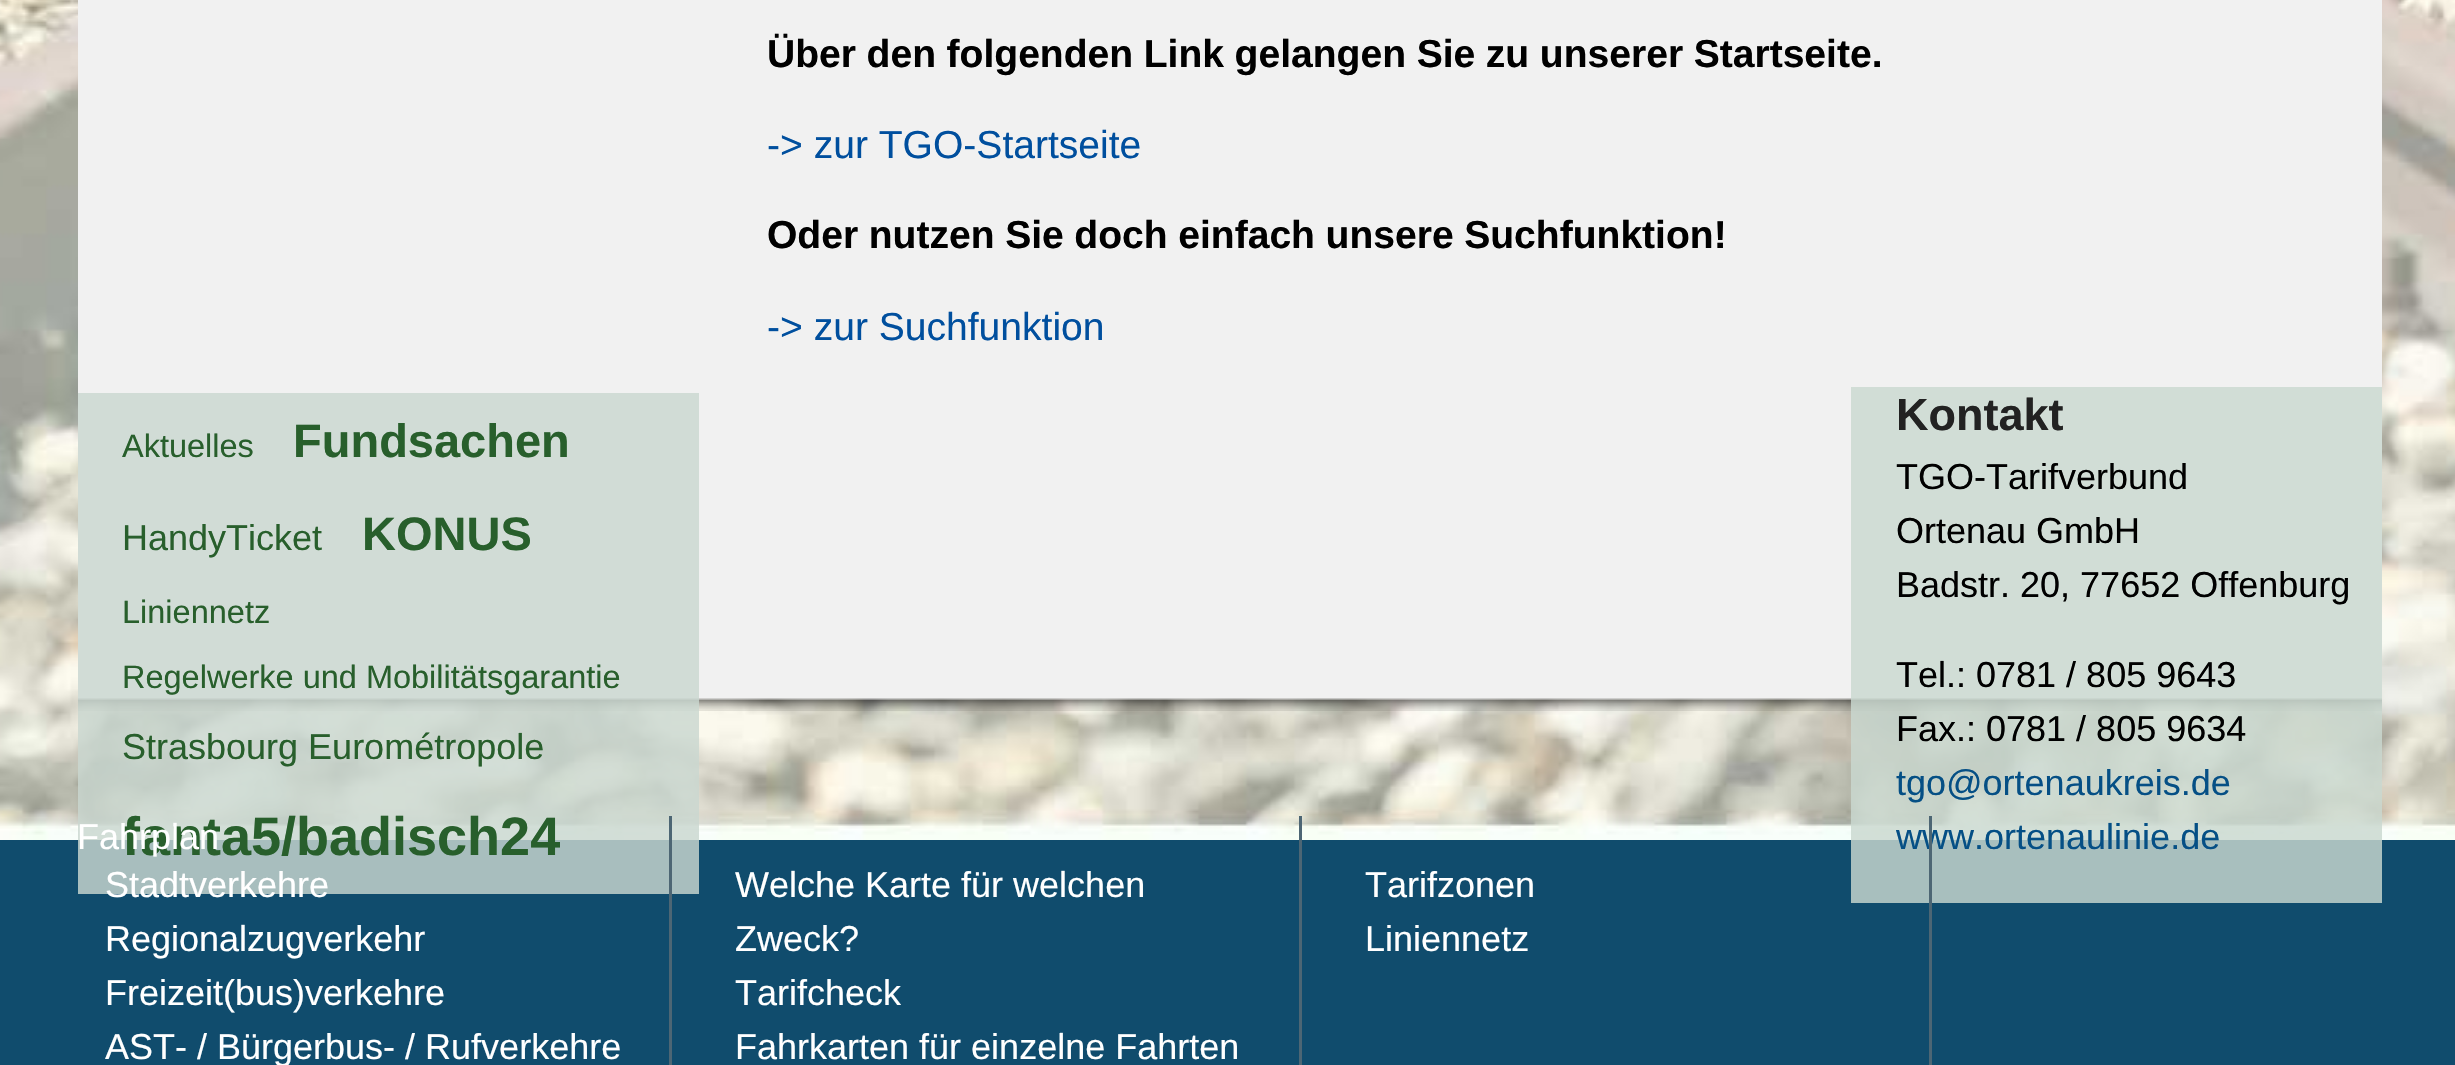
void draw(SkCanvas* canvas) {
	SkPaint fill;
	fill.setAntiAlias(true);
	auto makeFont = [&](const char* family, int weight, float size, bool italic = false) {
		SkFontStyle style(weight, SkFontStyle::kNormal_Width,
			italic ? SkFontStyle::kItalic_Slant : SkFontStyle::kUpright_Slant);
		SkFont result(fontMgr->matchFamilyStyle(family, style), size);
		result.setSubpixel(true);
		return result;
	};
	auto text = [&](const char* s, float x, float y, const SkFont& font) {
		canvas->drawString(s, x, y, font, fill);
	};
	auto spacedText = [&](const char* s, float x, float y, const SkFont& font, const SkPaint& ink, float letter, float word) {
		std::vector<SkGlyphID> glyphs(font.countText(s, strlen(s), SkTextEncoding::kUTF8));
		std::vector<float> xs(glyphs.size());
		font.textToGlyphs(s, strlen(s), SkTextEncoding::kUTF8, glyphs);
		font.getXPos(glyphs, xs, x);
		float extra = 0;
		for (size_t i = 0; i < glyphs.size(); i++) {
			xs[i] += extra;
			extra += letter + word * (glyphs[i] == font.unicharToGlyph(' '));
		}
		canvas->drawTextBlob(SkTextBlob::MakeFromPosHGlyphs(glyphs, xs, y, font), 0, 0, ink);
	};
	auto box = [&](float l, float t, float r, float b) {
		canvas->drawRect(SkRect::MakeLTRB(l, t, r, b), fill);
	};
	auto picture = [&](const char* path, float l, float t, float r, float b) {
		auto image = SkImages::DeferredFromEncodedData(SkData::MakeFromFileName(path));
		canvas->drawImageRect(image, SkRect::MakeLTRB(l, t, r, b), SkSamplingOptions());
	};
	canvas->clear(0xFF104C6D);
	picture("image0.png", 0, 0, 2455, 840);
	picture("image1.png", 78, 678, 2382, 711);
	fill.setColor(0xFFF1F1F1);
	box(78, 0, 2382, 678);
	fill.setColor(0xD1C9D7D0);
	box(78, 393, 699, 894);
	fill.setColor(0xD1C9D8D0);
	box(1851, 387, 2382, 903);
	fill.setColor(0xFF4D6674);
	box(669, 816, 672, 1065);
	box(1299, 816, 1302, 1065);
	auto font1 = makeFont("Liberation Sans", 700, 39.05f);
	fill.setColor(0xFF000000);
	spacedText("Über den folgenden Link gelangen Sie zu unserer Startseite.", 767, 67, font1, fill, 0, -0.25f);
	auto font2 = makeFont("Liberation Sans", 400, 39.05f);
	fill.setColor(0xFF004F9E);
	text("-> zur TGO-Startseite", 767, 158, font2);
	fill.setColor(0xFF000000);
	spacedText("Oder nutzen Sie doch einfach unsere Suchfunktion!", 767, 248, font1, fill, 0, -0.25f);
	fill.setColor(0xFF004F9E);
	text("-> zur Suchfunktion", 767, 340, font2);
	auto font3 = makeFont("Liberation Sans", 400, 32.5f);
	fill.setColor(0xFF285F2C);
	text("Aktuelles", 122, 457, font3);
	auto font4 = makeFont("Liberation Sans", 700, 47);
	text("Fundsachen", 293, 457, font4);
	auto font5 = makeFont("Liberation Sans", 400, 36);
	text("HandyTicket", 122, 550, font5);
	text("KONUS", 362, 550, font4);
	text("Liniennetz", 122, 623, font3);
	text("Regelwerke und Mobilitätsgarantie", 122, 688, font3);
	text("Strasbourg Eurométropole", 122, 759, font5);
	auto font6 = makeFont("Liberation Sans", 700, 54);
	text("fanta5/badisch24", 122, 855, font6);
	auto font7 = makeFont("Liberation Sans", 700, 45);
	fill.setColor(0xFF222222);
	text("Kontakt", 1896, 430, font7);
	fill.setColor(0xFF000000);
	text("TGO-Tarifverbund", 1896, 489, font5);
	text("Ortenau GmbH", 1896, 543, font5);
	text("Badstr. 20, 77652 Offenburg", 1896, 597, font5);
	text("Tel.: 0781 / 805 9643", 1896, 687, font5);
	text("Fax.: 0781 / 805 9634", 1896, 741, font5);
	fill.setColor(0xFF054F85);
	text("tgo@ortenaukreis.de", 1896, 795, font5);
	text("www.ortenaulinie.de", 1896, 849, font5);
	fill.setColor(0xFFFFFFFF);
	text("Fahrplan", 77, 849, font5);
	text("Stadtverkehre", 105, 897, font5);
	text("Regionalzugverkehr", 105, 951, font5);
	text("Freizeit(bus)verkehre", 105, 1005, font5);
	text("AST- / Bürgerbus- / Rufverkehre", 105, 1059, font5);
	text("Welche Karte für welchen", 735, 897, font5);
	text("Zweck?", 735, 951, font5);
	text("Tarifcheck", 735, 1005, font5);
	text("Fahrkarten für einzelne Fahrten", 735, 1059, font5);
	fill.setColor(0xFF4D6674);
	box(1929, 816, 1932, 1065);
	fill.setColor(0xFFFFFFFF);
	text("Tarifzonen", 1365, 897, font5);
	text("Liniennetz", 1365, 951, font5);
}
